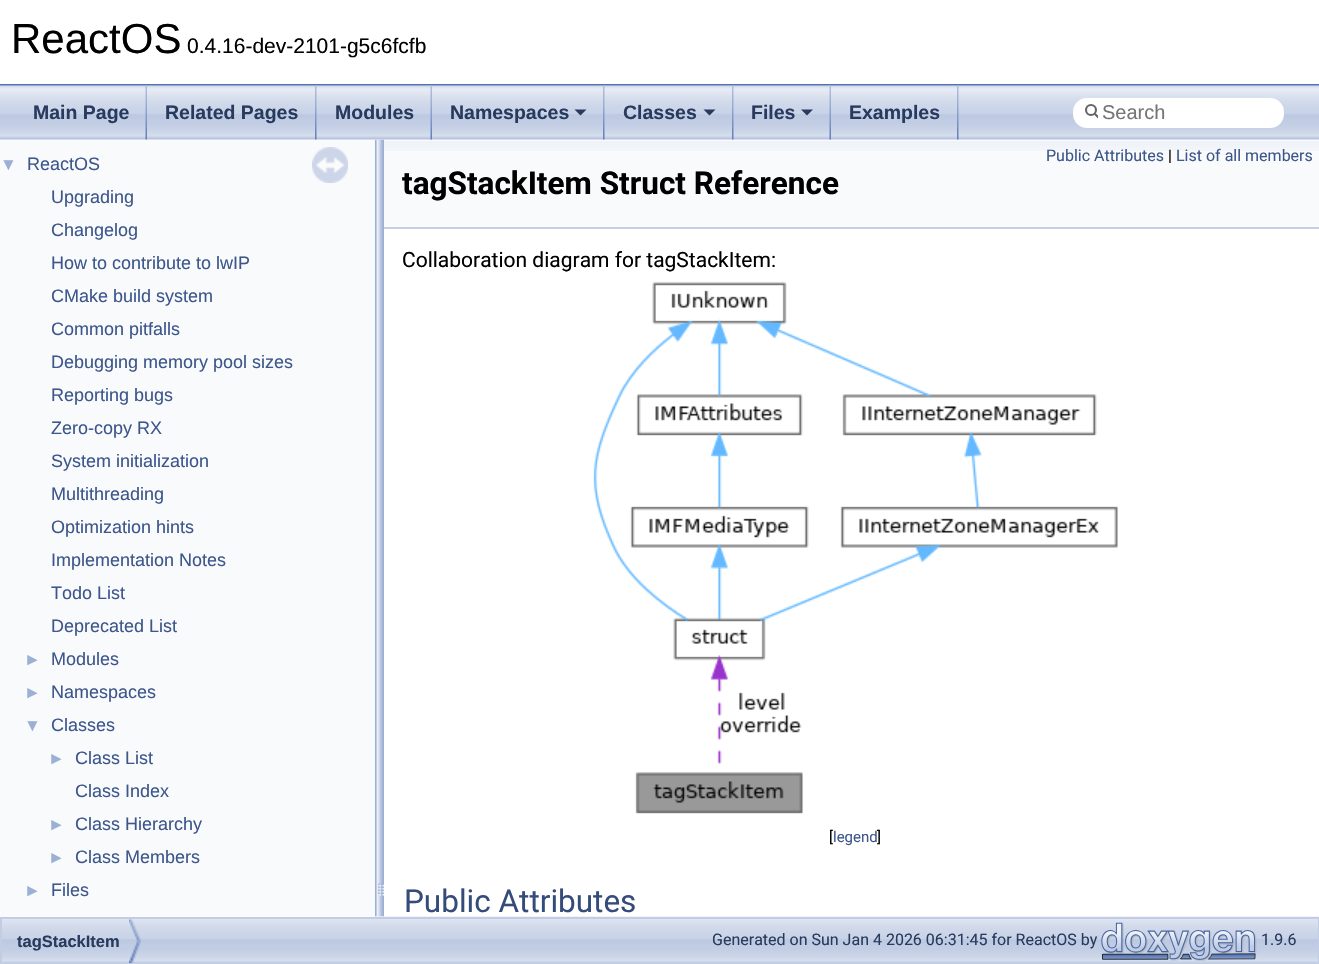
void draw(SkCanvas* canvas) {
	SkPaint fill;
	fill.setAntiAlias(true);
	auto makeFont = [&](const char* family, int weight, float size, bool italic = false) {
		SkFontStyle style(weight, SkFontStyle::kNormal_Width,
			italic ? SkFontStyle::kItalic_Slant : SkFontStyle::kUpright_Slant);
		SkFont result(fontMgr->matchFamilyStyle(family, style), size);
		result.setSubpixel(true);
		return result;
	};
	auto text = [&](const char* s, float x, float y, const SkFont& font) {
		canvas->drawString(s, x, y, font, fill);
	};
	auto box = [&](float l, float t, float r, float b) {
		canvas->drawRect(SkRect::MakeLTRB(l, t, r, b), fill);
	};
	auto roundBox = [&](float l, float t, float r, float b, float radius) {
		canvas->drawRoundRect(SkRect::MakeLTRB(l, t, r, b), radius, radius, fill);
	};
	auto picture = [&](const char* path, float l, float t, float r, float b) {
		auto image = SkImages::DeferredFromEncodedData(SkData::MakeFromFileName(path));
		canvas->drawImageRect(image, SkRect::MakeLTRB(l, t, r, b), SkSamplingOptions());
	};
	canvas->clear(0xFFFFFFFF);
	fill.setColor(0xFF5373B4);
	box(0, 84, 1319, 86);
	picture("image7.png", 2, 916, 1319, 963);
	picture("image4.png", 375, 139, 384, 917);
	picture("image0.png", 0, 85, 1319, 140);
	picture("image1.png", 145, 85, 147, 140);
	picture("image2.png", 315, 85, 317, 140);
	picture("image1.png", 430, 85, 432, 140);
	picture("image2.png", 603, 85, 605, 140);
	fill.setColor(0xFF283A5D);
	canvas->drawPath(SkPathBuilder().moveTo(574.5f, 109.5f).lineTo(586.5f, 109.5f).lineTo(580.5f, 115.5f).close().detach(), fill);
	picture("image2.png", 732, 85, 734, 140);
	canvas->drawPath(SkPathBuilder().moveTo(703.5f, 109.5f).lineTo(715.5f, 109.5f).lineTo(709.5f, 115.5f).close().detach(), fill);
	picture("image1.png", 829, 85, 831, 140);
	canvas->drawPath(SkPathBuilder().moveTo(801, 109.5f).lineTo(813, 109.5f).lineTo(807, 115.5f).close().detach(), fill);
	picture("image2.png", 957, 85, 959, 140);
	fill.setColor(0xFFFFFFFF);
	roundBox(1073, 98, 1284, 128, 14);
	fill.setStyle(SkPaint::kStroke_Style);
	fill.setStrokeWidth(2.1f);
	fill.setColor(0xFF656565);
	canvas->drawCircle(1091, 110, 5, fill);
	canvas->save();
	canvas->clipRect(SkRect::MakeLTRB(1083, 98, 1098, 126));
	fill.setStrokeCap(SkPaint::kRound_Cap);
	canvas->drawPath(SkPathBuilder().moveTo(1095, 114).lineTo(1099.5f, 118.5f).detach(), fill);
	canvas->restore();
	fill.setStyle(SkPaint::kFill_Style);
	fill.setColor(0xFFF9FAFC);
	box(0, 140, 375, 917);
	picture("image3.png", 312, 147, 348, 183);
	box(384, 140, 1319, 227);
	picture("image5.png", 384, 141, 1319, 151);
	fill.setColor(0xFFC4CFE5);
	box(384, 227, 1319, 229);
	picture("image6.png", 593, 281, 1118, 814);
	fill.setStyle(SkPaint::kStroke_Style);
	fill.setStrokeWidth(2);
	fill.setStrokeCap(SkPaint::kButt_Cap);
	fill.setColor(0xFFC2CDE4);
	canvas->drawRect(SkRect::MakeLTRB(1, 918, 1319, 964), fill);
	picture("image8.png", 129, 919, 141, 963);
	picture("image9.png", 1101, 922, 1257, 962);
	auto font1 = makeFont("Liberation Sans", 400, 42);
	fill.setStyle(SkPaint::kFill_Style);
	fill.setColor(0xFF000000);
	text("ReactOS", 11, 53, font1);
	auto font2 = makeFont("Liberation Sans", 400, 21);
	text("0.4.16-dev-2101-g5c6fcfb", 187, 53, font2);
	auto font3 = makeFont("Liberation Sans", 700, 19.5f);
	fill.setColor(0xFF283A5D);
	text("Main Page", 33, 119, font3);
	text("Related Pages", 165, 119, font3);
	text("Modules", 335, 119, font3);
	text("Namespaces", 450, 119, font3);
	text("Classes", 623, 119, font3);
	text("Files", 751, 119, font3);
	text("Examples", 849, 119, font3);
	auto font4 = makeFont("Liberation Sans", 400, 20);
	fill.setColor(0xFF757575);
	text("Search", 1102, 119, font4);
	auto font5 = makeFont("Liberation Sans", 400, 17);
	fill.setColor(0xFF9CAFD4);
	text("▼", 0, 170, font5);
	auto font6 = makeFont("Liberation Sans", 400, 18);
	fill.setColor(0xFF3D578C);
	text("ReactOS", 27, 170, font6);
	text("Upgrading", 51, 203, font6);
	text("Changelog", 51, 236, font6);
	text("How to contribute to lwIP", 51, 269, font6);
	text("CMake build system", 51, 302, font6);
	text("Common pitfalls", 51, 335, font6);
	text("Debugging memory pool sizes", 51, 368, font6);
	text("Reporting bugs", 51, 401, font6);
	text("Zero-copy RX", 51, 434, font6);
	text("System initialization", 51, 467, font6);
	text("Multithreading", 51, 500, font6);
	text("Optimization hints", 51, 533, font6);
	text("Implementation Notes", 51, 566, font6);
	text("Todo List", 51, 599, font6);
	text("Deprecated List", 51, 632, font6);
	fill.setColor(0xFF9CAFD4);
	text("►", 24, 665, font5);
	fill.setColor(0xFF3D578C);
	text("Modules", 51, 665, font6);
	fill.setColor(0xFF9CAFD4);
	text("►", 24, 698, font5);
	fill.setColor(0xFF3D578C);
	text("Namespaces", 51, 698, font6);
	fill.setColor(0xFF9CAFD4);
	text("▼", 24, 731, font5);
	fill.setColor(0xFF3D578C);
	text("Classes", 51, 731, font6);
	fill.setColor(0xFF9CAFD4);
	text("►", 48, 764, font5);
	fill.setColor(0xFF3D578C);
	text("Class List", 75, 764, font6);
	text("Class Index", 75, 797, font6);
	fill.setColor(0xFF9CAFD4);
	text("►", 48, 830, font5);
	fill.setColor(0xFF3D578C);
	text("Class Hierarchy", 75, 830, font6);
	fill.setColor(0xFF9CAFD4);
	text("►", 48, 863, font5);
	fill.setColor(0xFF3D578C);
	text("Class Members", 75, 863, font6);
	fill.setColor(0xFF9CAFD4);
	text("►", 24, 896, font5);
	fill.setColor(0xFF3D578C);
	text("Files", 51, 896, font6);
	auto font7 = makeFont("Roboto", 400, 16);
	text("Public Attributes", 1046, 161, font7);
	fill.setColor(0xFF000000);
	text("|", 1168, 161, font7);
	fill.setColor(0xFF3D578C);
	text("List of all members", 1176, 161, font7);
	auto font8 = makeFont("Roboto", 700, 31.5f);
	fill.setColor(0xFF000000);
	text("tagStackItem Struct Reference", 402, 194, font8);
	auto font9 = makeFont("Roboto", 400, 21);
	text("Collaboration diagram for tagStackItem:", 402, 267, font9);
	auto font10 = makeFont("Roboto", 400, 15);
	text("[", 829, 842, font10);
	fill.setColor(0xFF3D578C);
	text("legend", 833, 842, font10);
	fill.setColor(0xFF000000);
	text("]", 877, 842, font10);
	auto font11 = makeFont("Roboto", 400, 31.5f);
	fill.setColor(0xFF354C7B);
	text("Public Attributes", 404, 912, font11);
	auto font12 = makeFont("Liberation Sans", 700, 16.5f);
	fill.setColor(0xFF283A5D);
	text("tagStackItem", 17, 947, font12);
	text("Generated on Sun Jan 4 2026 06:31:45 for ReactOS by", 712, 945, font7);
	text("1.9.6", 1261, 945, font7);
}
